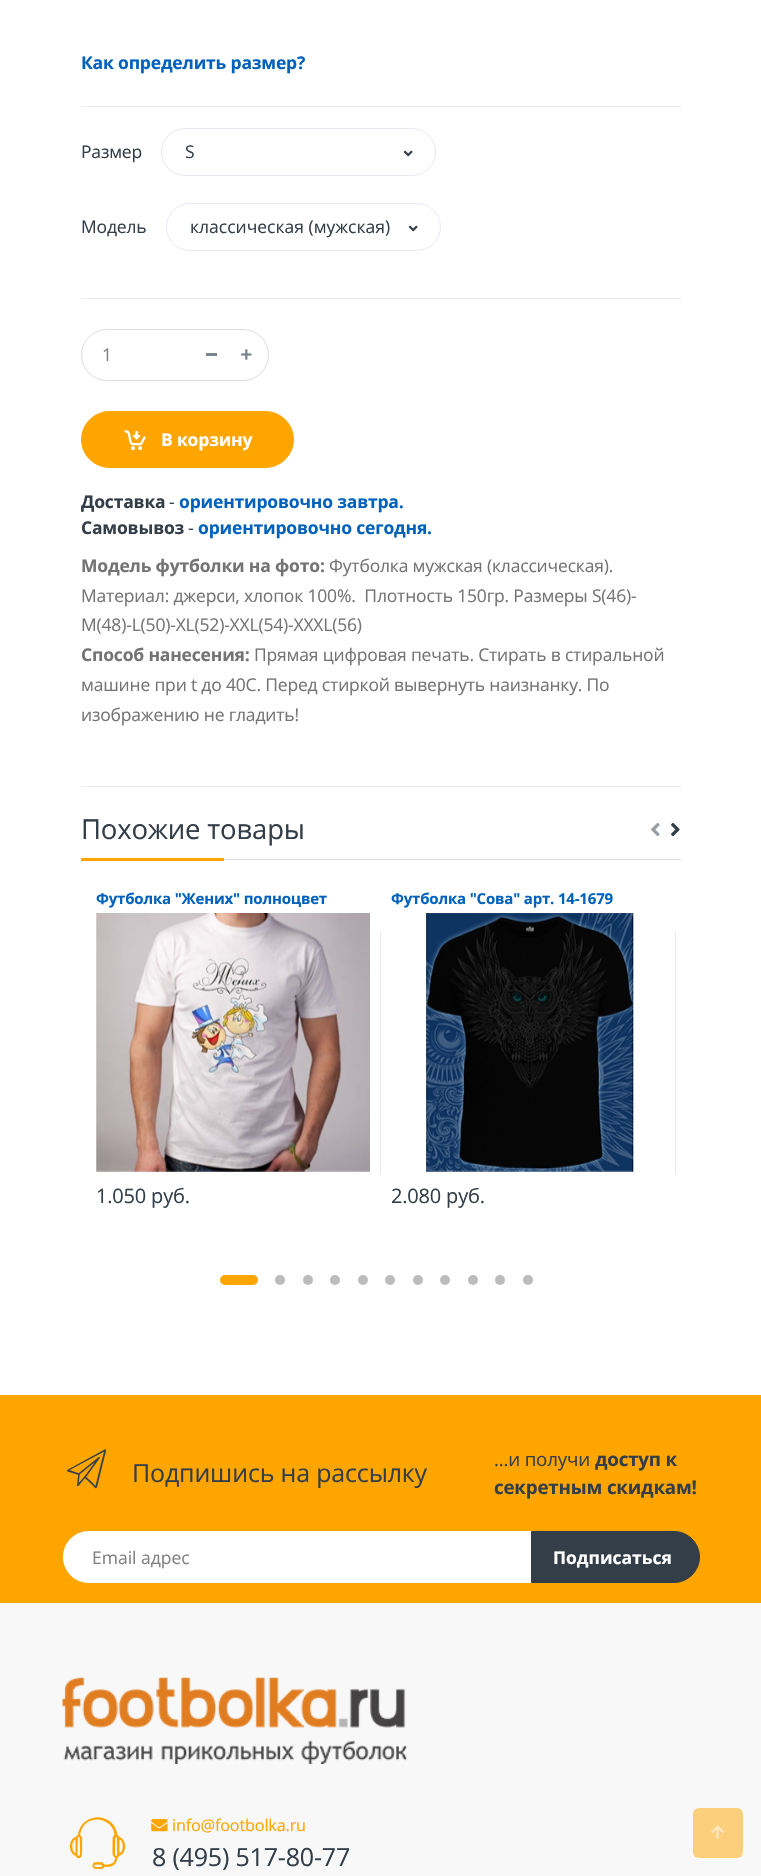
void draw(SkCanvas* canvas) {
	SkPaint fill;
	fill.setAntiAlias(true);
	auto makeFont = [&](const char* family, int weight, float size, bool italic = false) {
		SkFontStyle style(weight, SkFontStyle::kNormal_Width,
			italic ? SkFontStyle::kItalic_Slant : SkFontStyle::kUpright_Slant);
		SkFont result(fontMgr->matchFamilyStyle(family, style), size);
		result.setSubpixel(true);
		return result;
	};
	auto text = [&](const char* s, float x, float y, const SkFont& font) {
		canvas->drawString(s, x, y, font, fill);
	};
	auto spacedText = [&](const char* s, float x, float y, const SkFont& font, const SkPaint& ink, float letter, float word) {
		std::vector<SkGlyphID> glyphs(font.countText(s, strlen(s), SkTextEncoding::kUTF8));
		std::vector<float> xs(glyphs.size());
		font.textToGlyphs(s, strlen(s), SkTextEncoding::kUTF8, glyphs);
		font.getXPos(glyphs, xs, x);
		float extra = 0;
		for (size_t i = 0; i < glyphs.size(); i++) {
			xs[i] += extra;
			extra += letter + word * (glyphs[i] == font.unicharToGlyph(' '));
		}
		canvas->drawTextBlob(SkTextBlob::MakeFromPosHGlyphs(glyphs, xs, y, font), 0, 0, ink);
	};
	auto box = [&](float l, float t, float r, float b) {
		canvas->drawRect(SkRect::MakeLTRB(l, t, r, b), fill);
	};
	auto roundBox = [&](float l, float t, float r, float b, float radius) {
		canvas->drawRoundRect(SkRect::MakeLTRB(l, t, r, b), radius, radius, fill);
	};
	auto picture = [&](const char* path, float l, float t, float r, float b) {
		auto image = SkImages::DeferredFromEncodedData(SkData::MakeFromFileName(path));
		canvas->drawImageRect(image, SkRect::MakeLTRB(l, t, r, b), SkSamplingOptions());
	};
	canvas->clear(0xFFFFFFFF);
	fill.setColor(0xFFE7EAF3);
	box(81, 786, 681, 787);
	box(81, 106, 681, 107);
	box(81, 298, 681, 299);
	fill.setStyle(SkPaint::kStroke_Style);
	fill.setStrokeWidth(1);
	canvas->drawRoundRect(SkRect::MakeLTRB(161.5f, 128.5f, 435.5f, 175.5f), 23.5f, 23.5f, fill);
	picture("image0.png", 403, 150, 413, 157);
	canvas->drawRoundRect(SkRect::MakeLTRB(166.5f, 203.5f, 440.5f, 250.5f), 23.5f, 23.5f, fill);
	picture("image0.png", 408, 225, 418, 232);
	fill.setColor(0xFFDDDDDD);
	canvas->drawRoundRect(SkRect::MakeLTRB(81.5f, 329.5f, 268.5f, 380.5f), 25.5f, 25.5f, fill);
	fill.setStyle(SkPaint::kFill_Style);
	fill.setColor(0xFF77838F);
	box(206, 353, 217, 356);
	picture("image1.png", 241, 349, 252, 360);
	fill.setColor(0xFFFFA500);
	canvas->drawRoundRect(SkRect::MakeLTRB(81.5f, 411.5f, 293.5f, 467.5f), 28, 28, fill);
	fill.setStyle(SkPaint::kStroke_Style);
	canvas->drawRoundRect(SkRect::MakeLTRB(81.5f, 411.5f, 293.5f, 467.5f), 28, 28, fill);
	picture("image2.png", 124, 430, 146, 451);
	fill.setStyle(SkPaint::kFill_Style);
	fill.setColor(0xFFDDDDDD);
	box(224, 859, 681, 860);
	fill.setColor(0xFFFFA500);
	box(81, 858, 224, 861);
	picture("image3.png", 651, 822, 660, 837);
	picture("image4.png", 671, 822, 680, 837);
	picture("image5.png", 96, 913, 370, 1172);
	fill.setColor(0xFFEAEAEA);
	box(380, 931, 381, 1174);
	picture("image6.png", 425, 913, 635, 1172);
	box(675, 931, 676, 1174);
	fill.setColor(0xFFFFA500);
	roundBox(220, 1275, 258, 1285, 5);
	fill.setColor(0xFFBCBCBC);
	canvas->drawCircle(280, 1280, 5, fill);
	canvas->drawCircle(308, 1280, 5, fill);
	canvas->drawCircle(335, 1280, 5, fill);
	canvas->drawCircle(363, 1280, 5, fill);
	canvas->drawCircle(390, 1280, 5, fill);
	canvas->drawCircle(418, 1280, 5, fill);
	canvas->drawCircle(445, 1280, 5, fill);
	canvas->drawCircle(473, 1280, 5, fill);
	canvas->drawCircle(500, 1280, 5, fill);
	canvas->drawCircle(528, 1280, 5, fill);
	fill.setColor(0xFFFFA500);
	box(0, 1395, 761, 1603);
	picture("image7.png", 67, 1449, 106, 1489);
	fill.setColor(0xFFFFFFFF);
	canvas->drawPath(SkPathBuilder().moveTo(89, 1531).lineTo(533, 1531).lineTo(533, 1583).lineTo(89, 1583).cubicTo(74.5f, 1583, 63, 1571.5f, 63, 1557).cubicTo(63, 1542.5f, 74.5f, 1531, 89, 1531).close().detach(), fill);
	fill.setColor(0xFF333E48);
	canvas->drawPath(SkPathBuilder().moveTo(531.5f, 1531.5f).lineTo(674, 1531.5f).cubicTo(688, 1531.5f, 699.5f, 1543, 699.5f, 1557).cubicTo(699.5f, 1571, 688, 1582.5f, 674, 1582.5f).lineTo(531.5f, 1582.5f).close().detach(), fill);
	fill.setStyle(SkPaint::kStroke_Style);
	canvas->drawPath(SkPathBuilder().moveTo(531.5f, 1531.5f).lineTo(674, 1531.5f).cubicTo(688, 1531.5f, 699.5f, 1543, 699.5f, 1557).cubicTo(699.5f, 1571, 688, 1582.5f, 674, 1582.5f).lineTo(531.5f, 1582.5f).close().detach(), fill);
	fill.setStyle(SkPaint::kFill_Style);
	fill.setColor(0xFFF8F8F8);
	box(0, 1603, 761, 1876);
	picture("image8.png", 62, 1677, 407, 1764);
	picture("image9.png", 69, 1817, 126, 1869);
	picture("image10.png", 151, 1819, 168, 1832);
	fill.setColor(0xFFFCCF7C);
	roundBox(693, 1808, 743, 1858, 6);
	picture("image11.png", 711, 1825, 724, 1839);
	auto font1 = makeFont("Open Sans", 700, 17.5f);
	fill.setColor(0xFF0062BD);
	spacedText("Как определить размер?", 81, 69, font1, fill, -0.18f, 0);
	auto font2 = makeFont("Open Sans", 400, 17.5f);
	fill.setColor(0xFF333E48);
	spacedText("Размер", 81, 158, font2, fill, -0.18f, 0);
	text("S", 185, 158, font2);
	spacedText("Модель", 81, 233, font2, fill, -0.18f, 0);
	text("классическая (мужская)", 190, 233, font2);
	fill.setColor(0xFF818181);
	text("1", 102, 361, font2);
	fill.setColor(0xFFFFFFFF);
	spacedText("В корзину", 161, 446, font1, fill, -0.18f, 0);
	fill.setColor(0xFF333E48);
	spacedText("Доставка", 81, 508, font1, fill, -0.18f, 0);
	spacedText("-", 169, 508, font2, fill, -0.18f, 0);
	fill.setColor(0xFF0062BD);
	spacedText("ориентировочно завтра.", 179, 508, font1, fill, -0.18f, 0);
	fill.setColor(0xFF333E48);
	spacedText("Самовывоз", 81, 534, font1, fill, -0.18f, 0);
	spacedText("-", 188, 534, font2, fill, -0.18f, 0);
	fill.setColor(0xFF0062BD);
	spacedText("ориентировочно сегодня.", 198, 534, font1, fill, -0.18f, 0);
	fill.setColor(0xFF747474);
	spacedText("Модель футболки на фото:", 81, 572, font1, fill, -0.18f, 0);
	spacedText("Футболка мужская (классическая).", 329, 572, font2, fill, -0.18f, 0);
	spacedText("Материал: джерси, хлопок 100%.  Плотность 150гр. Размеры S(46)-", 81, 602, font2, fill, -0.18f, 0);
	spacedText("M(48)-L(50)-XL(52)-XXL(54)-XXXL(56)", 81, 631, font2, fill, -0.18f, 0);
	spacedText("Способ нанесения:", 81, 661, font1, fill, -0.18f, 0);
	spacedText("Прямая цифровая печать. Стирать в стиральной", 254, 661, font2, fill, -0.18f, 0);
	spacedText("машине при t до 40С. Перед стиркой вывернуть наизнанку. По", 81, 691, font2, fill, -0.18f, 0);
	spacedText("изображению не гладить!", 81, 721, font2, fill, -0.18f, 0);
	auto font3 = makeFont("Open Sans", 400, 27.5f);
	fill.setColor(0xFF333E48);
	spacedText("Похожие товары", 81, 839, font3, fill, -0.18f, 0);
	auto font4 = makeFont("Open Sans", 700, 15);
	fill.setColor(0xFF0062BD);
	spacedText("Футболка \"Жених\" полноцвет", 96, 904, font4, fill, -0.18f, 0);
	auto font5 = makeFont("Open Sans", 400, 20);
	fill.setColor(0xFF333E48);
	spacedText("1.050 руб.", 96, 1203, font5, fill, -0.18f, 0);
	fill.setColor(0xFF0062BD);
	spacedText("Футболка \"Сова\" арт. 14-1679", 391, 904, font4, fill, -0.18f, 0);
	fill.setColor(0xFF333E48);
	spacedText("2.080 руб.", 391, 1203, font5, fill, -0.18f, 0);
	auto font6 = makeFont("Open Sans", 400, 25);
	spacedText("Подпишись на рассылку", 132, 1482, font6, fill, -0.18f, 0);
	auto font7 = makeFont("Open Sans", 400, 18.75f);
	spacedText("...и получи", 494, 1466, font7, fill, -0.18f, 0);
	auto font8 = makeFont("Open Sans", 700, 18.75f);
	spacedText("доступ к", 595, 1466, font8, fill, -0.18f, 0);
	spacedText("секретным скидкам!", 494, 1494, font8, fill, -0.18f, 0);
	fill.setColor(0xFF818181);
	text("Email адрес", 92, 1564, font2);
	fill.setColor(0xFFFFFFFF);
	text("Подписаться", 553, 1564, font1);
	auto font9 = makeFont("Open Sans", 400, 16.25f);
	fill.setColor(0xFFFFA500);
	spacedText("info@footbolka.ru", 172, 1831, font9, fill, -0.18f, 0);
	fill.setColor(0xFF333E48);
	spacedText("8 (495) 517-80-77", 152, 1866, font6, fill, -0.18f, 0);
}
